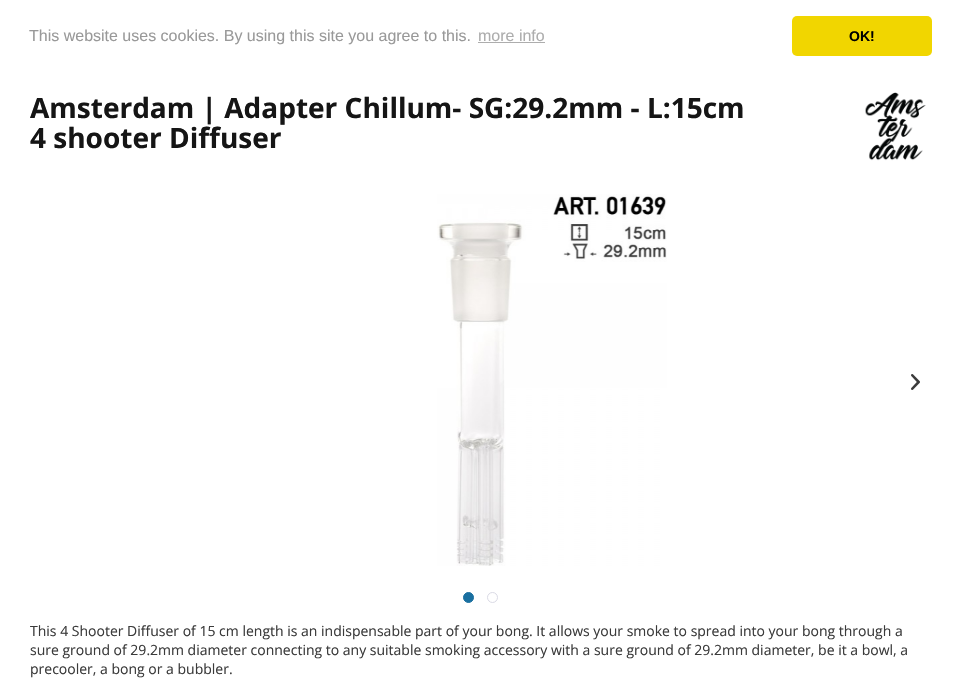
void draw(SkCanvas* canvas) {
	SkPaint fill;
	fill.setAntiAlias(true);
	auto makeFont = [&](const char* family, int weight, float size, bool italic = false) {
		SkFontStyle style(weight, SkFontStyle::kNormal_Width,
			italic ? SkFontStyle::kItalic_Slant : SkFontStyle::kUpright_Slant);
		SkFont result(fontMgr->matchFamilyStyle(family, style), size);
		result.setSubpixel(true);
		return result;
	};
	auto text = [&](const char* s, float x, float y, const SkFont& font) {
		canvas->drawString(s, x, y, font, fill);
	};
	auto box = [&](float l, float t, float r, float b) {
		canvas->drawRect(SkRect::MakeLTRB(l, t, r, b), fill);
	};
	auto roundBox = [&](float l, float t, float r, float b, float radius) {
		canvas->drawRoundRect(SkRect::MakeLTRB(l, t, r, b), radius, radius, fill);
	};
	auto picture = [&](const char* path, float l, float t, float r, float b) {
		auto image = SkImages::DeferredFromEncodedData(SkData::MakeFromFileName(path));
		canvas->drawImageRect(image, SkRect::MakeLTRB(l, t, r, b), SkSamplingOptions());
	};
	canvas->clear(0xFFFFFFFF);
	fill.setColor(0xFFADADAD);
	box(478, 42, 545, 43);
	fill.setColor(0xFFF1D600);
	roundBox(792, 16, 932, 56, 5);
	picture("image0.png", 865, 92, 926, 161);
	picture("image1.png", 437, 194, 667, 566);
	picture("image2.png", 911, 374, 920, 390);
	fill.setColor(0xFF196FA0);
	canvas->drawCircle(468.5f, 597.5f, 5, fill);
	fill.setStyle(SkPaint::kStroke_Style);
	fill.setStrokeWidth(1);
	canvas->drawCircle(468.5f, 597.5f, 5, fill);
	fill.setColor(0xFFDADAE5);
	canvas->drawCircle(492.5f, 597.5f, 5, fill);
	auto font1 = makeFont("Liberation Sans", 400, 16);
	fill.setStyle(SkPaint::kFill_Style);
	fill.setColor(0xFF999999);
	text("This website uses cookies. By using this site you agree to this.", 29, 41, font1);
	fill.setColor(0xFFADADAD);
	text("more info", 478, 41, font1);
	auto font2 = makeFont("Liberation Sans", 700, 14);
	fill.setColor(0xFF000000);
	text("OK!", 849, 41, font2);
	auto font3 = makeFont("Open Sans", 700, 28);
	fill.setColor(0xFF151515);
	text("Amsterdam | Adapter Chillum- SG:29.2mm - L:15cm", 30, 118, font3);
	text("4 shooter Diffuser", 30, 148, font3);
	auto font4 = makeFont("Open Sans", 400, 14);
	fill.setColor(0xFF3B3B3B);
	text("This 4 Shooter Diffuser of 15 cm length is an indispensable part of your bong. It allows your smoke to spread into your bong through a", 30, 636, font4);
	text("sure ground of 29.2mm diameter connecting to any suitable smoking accessory with a sure ground of 29.2mm diameter, be it a bowl, a", 30, 655, font4);
	text("precooler, a bong or a bubbler.", 30, 674, font4);
}
